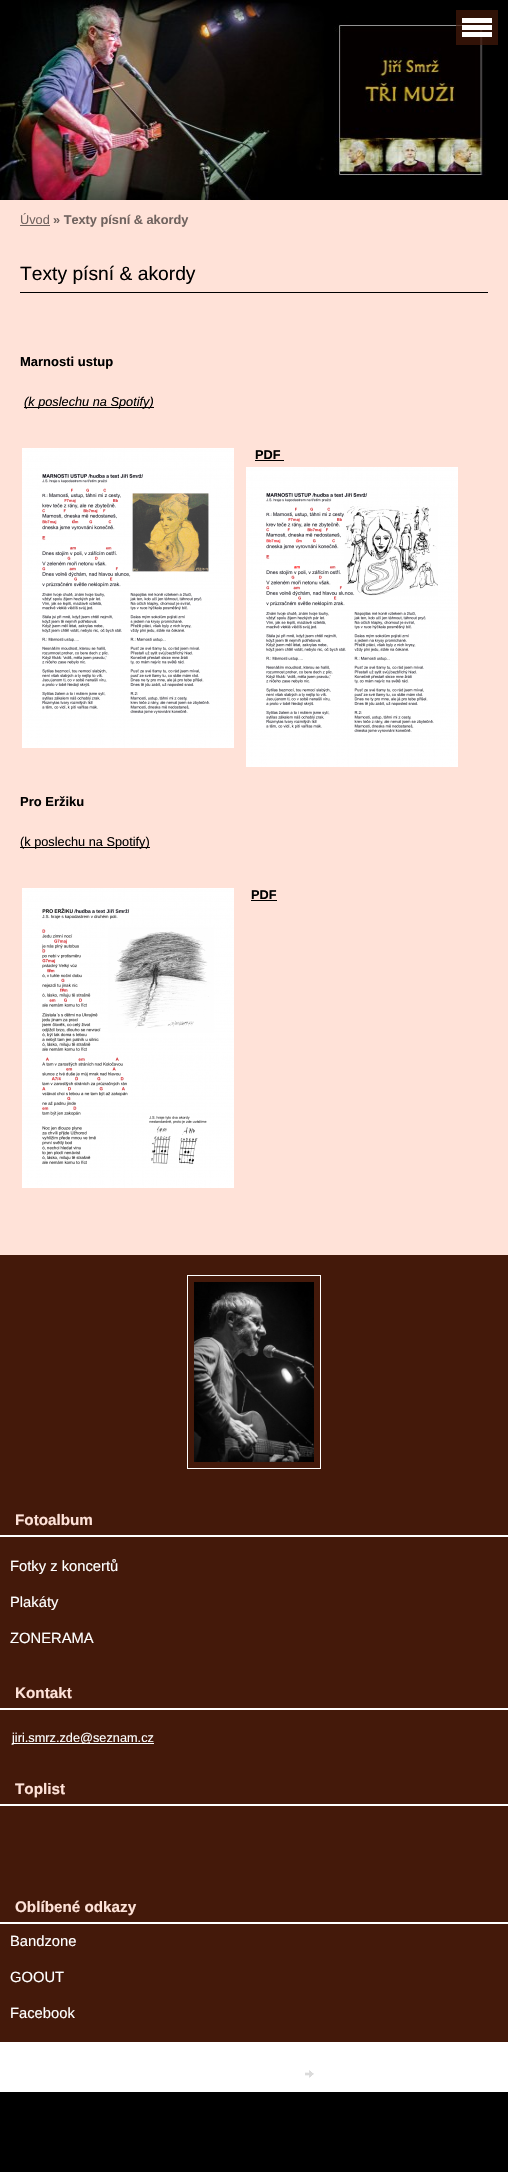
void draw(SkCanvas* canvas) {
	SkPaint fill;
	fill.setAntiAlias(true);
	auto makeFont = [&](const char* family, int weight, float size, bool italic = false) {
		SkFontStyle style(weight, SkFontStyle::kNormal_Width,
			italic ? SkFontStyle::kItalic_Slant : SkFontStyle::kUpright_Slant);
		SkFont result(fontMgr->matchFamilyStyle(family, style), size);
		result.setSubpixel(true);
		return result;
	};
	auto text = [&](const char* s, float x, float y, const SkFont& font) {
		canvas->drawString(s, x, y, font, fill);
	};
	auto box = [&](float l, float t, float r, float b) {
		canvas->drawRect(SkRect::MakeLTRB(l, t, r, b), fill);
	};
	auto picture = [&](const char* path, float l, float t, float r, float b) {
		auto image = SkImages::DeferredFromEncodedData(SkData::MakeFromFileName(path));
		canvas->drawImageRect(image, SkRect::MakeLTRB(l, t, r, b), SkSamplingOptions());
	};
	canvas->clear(0xFF000000);
	picture("image0.png", 0, 0, 508, 200);
	fill.setColor(0xB344190A);
	box(456, 10, 498, 45);
	fill.setColor(0xFFFFFFFF);
	box(462, 18, 492, 23);
	box(462, 25, 492, 30);
	box(462, 32, 492, 37);
	fill.setColor(0xFFFFE2D8);
	box(0, 200, 508, 1255);
	fill.setColor(0xFF70635F);
	box(20, 225, 50, 226);
	fill.setColor(0xFF000000);
	box(20, 292, 488, 293);
	box(24, 407, 154, 408);
	picture("image1.png", 22, 448, 234, 748);
	box(255, 460, 284, 461);
	picture("image2.png", 246, 467, 458, 767);
	box(20, 847, 150, 848);
	picture("image3.png", 22, 888, 234, 1188);
	box(251, 900, 277, 901);
	fill.setColor(0xFF44190A);
	box(0, 1255, 508, 2042);
	fill.setStyle(SkPaint::kStroke_Style);
	fill.setStrokeWidth(1);
	fill.setColor(0xFFFFFFFF);
	canvas->drawRect(SkRect::MakeLTRB(187.5f, 1275.5f, 320.5f, 1468.5f), fill);
	picture("image4.png", 194, 1282, 314, 1462);
	fill.setStyle(SkPaint::kFill_Style);
	box(0, 1535, 508, 1537);
	box(0, 1708, 508, 1710);
	box(12, 1743, 154, 1744);
	box(0, 1804, 508, 1806);
	box(0, 1922, 508, 1924);
	box(0, 2042, 508, 2092);
	picture("image5.png", 305, 2070, 314, 2078);
	auto font1 = makeFont("Liberation Sans", 400, 12.75f);
	fill.setColor(0xFF70635F);
	text("Úvod", 20, 224, font1);
	auto font2 = makeFont("Liberation Sans", 700, 12.75f);
	text("» Texty písní & akordy", 53, 224, font2);
	auto font3 = makeFont("Liberation Sans", 400, 19.25f);
	fill.setColor(0xFF000000);
	text("Texty písní & akordy", 20, 280, font3);
	auto font4 = makeFont("Liberation Sans", 700, 13);
	text("Marnosti ustup", 20, 366, font4);
	auto font5 = makeFont("Liberation Sans", 400, 12.75f, true);
	text("(k poslechu na Spotify)", 24, 406, font5);
	text("PDF", 255, 459, font2);
	text("Pro Eržiku", 20, 806, font4);
	text("(k poslechu na Spotify)", 20, 846, font1);
	text("PDF", 251, 899, font2);
	auto font6 = makeFont("Liberation Sans", 700, 15.25f);
	fill.setColor(0xFFFFE2D8);
	text("Fotoalbum", 15, 1525, font6);
	auto font7 = makeFont("Liberation Sans", 400, 14.75f);
	fill.setColor(0xFFFFFFFF);
	text("Fotky z koncertů", 10, 1571, font7);
	text("Plakáty", 10, 1607, font7);
	text("ZONERAMA", 10, 1643, font7);
	fill.setColor(0xFFFFE2D8);
	text("Kontakt", 15, 1698, font6);
	fill.setColor(0xFFFFFFFF);
	text("jiri.smrz.zde@seznam.cz", 12, 1742, font1);
	fill.setColor(0xFFFFE2D8);
	text("Toplist", 15, 1794, font6);
	text("Oblíbené odkazy", 15, 1912, font6);
	fill.setColor(0xFFFFFFFF);
	text("Bandzone", 10, 1946, font7);
	text("GOOUT", 10, 1982, font7);
	text("Facebook", 10, 2018, font7);
}
